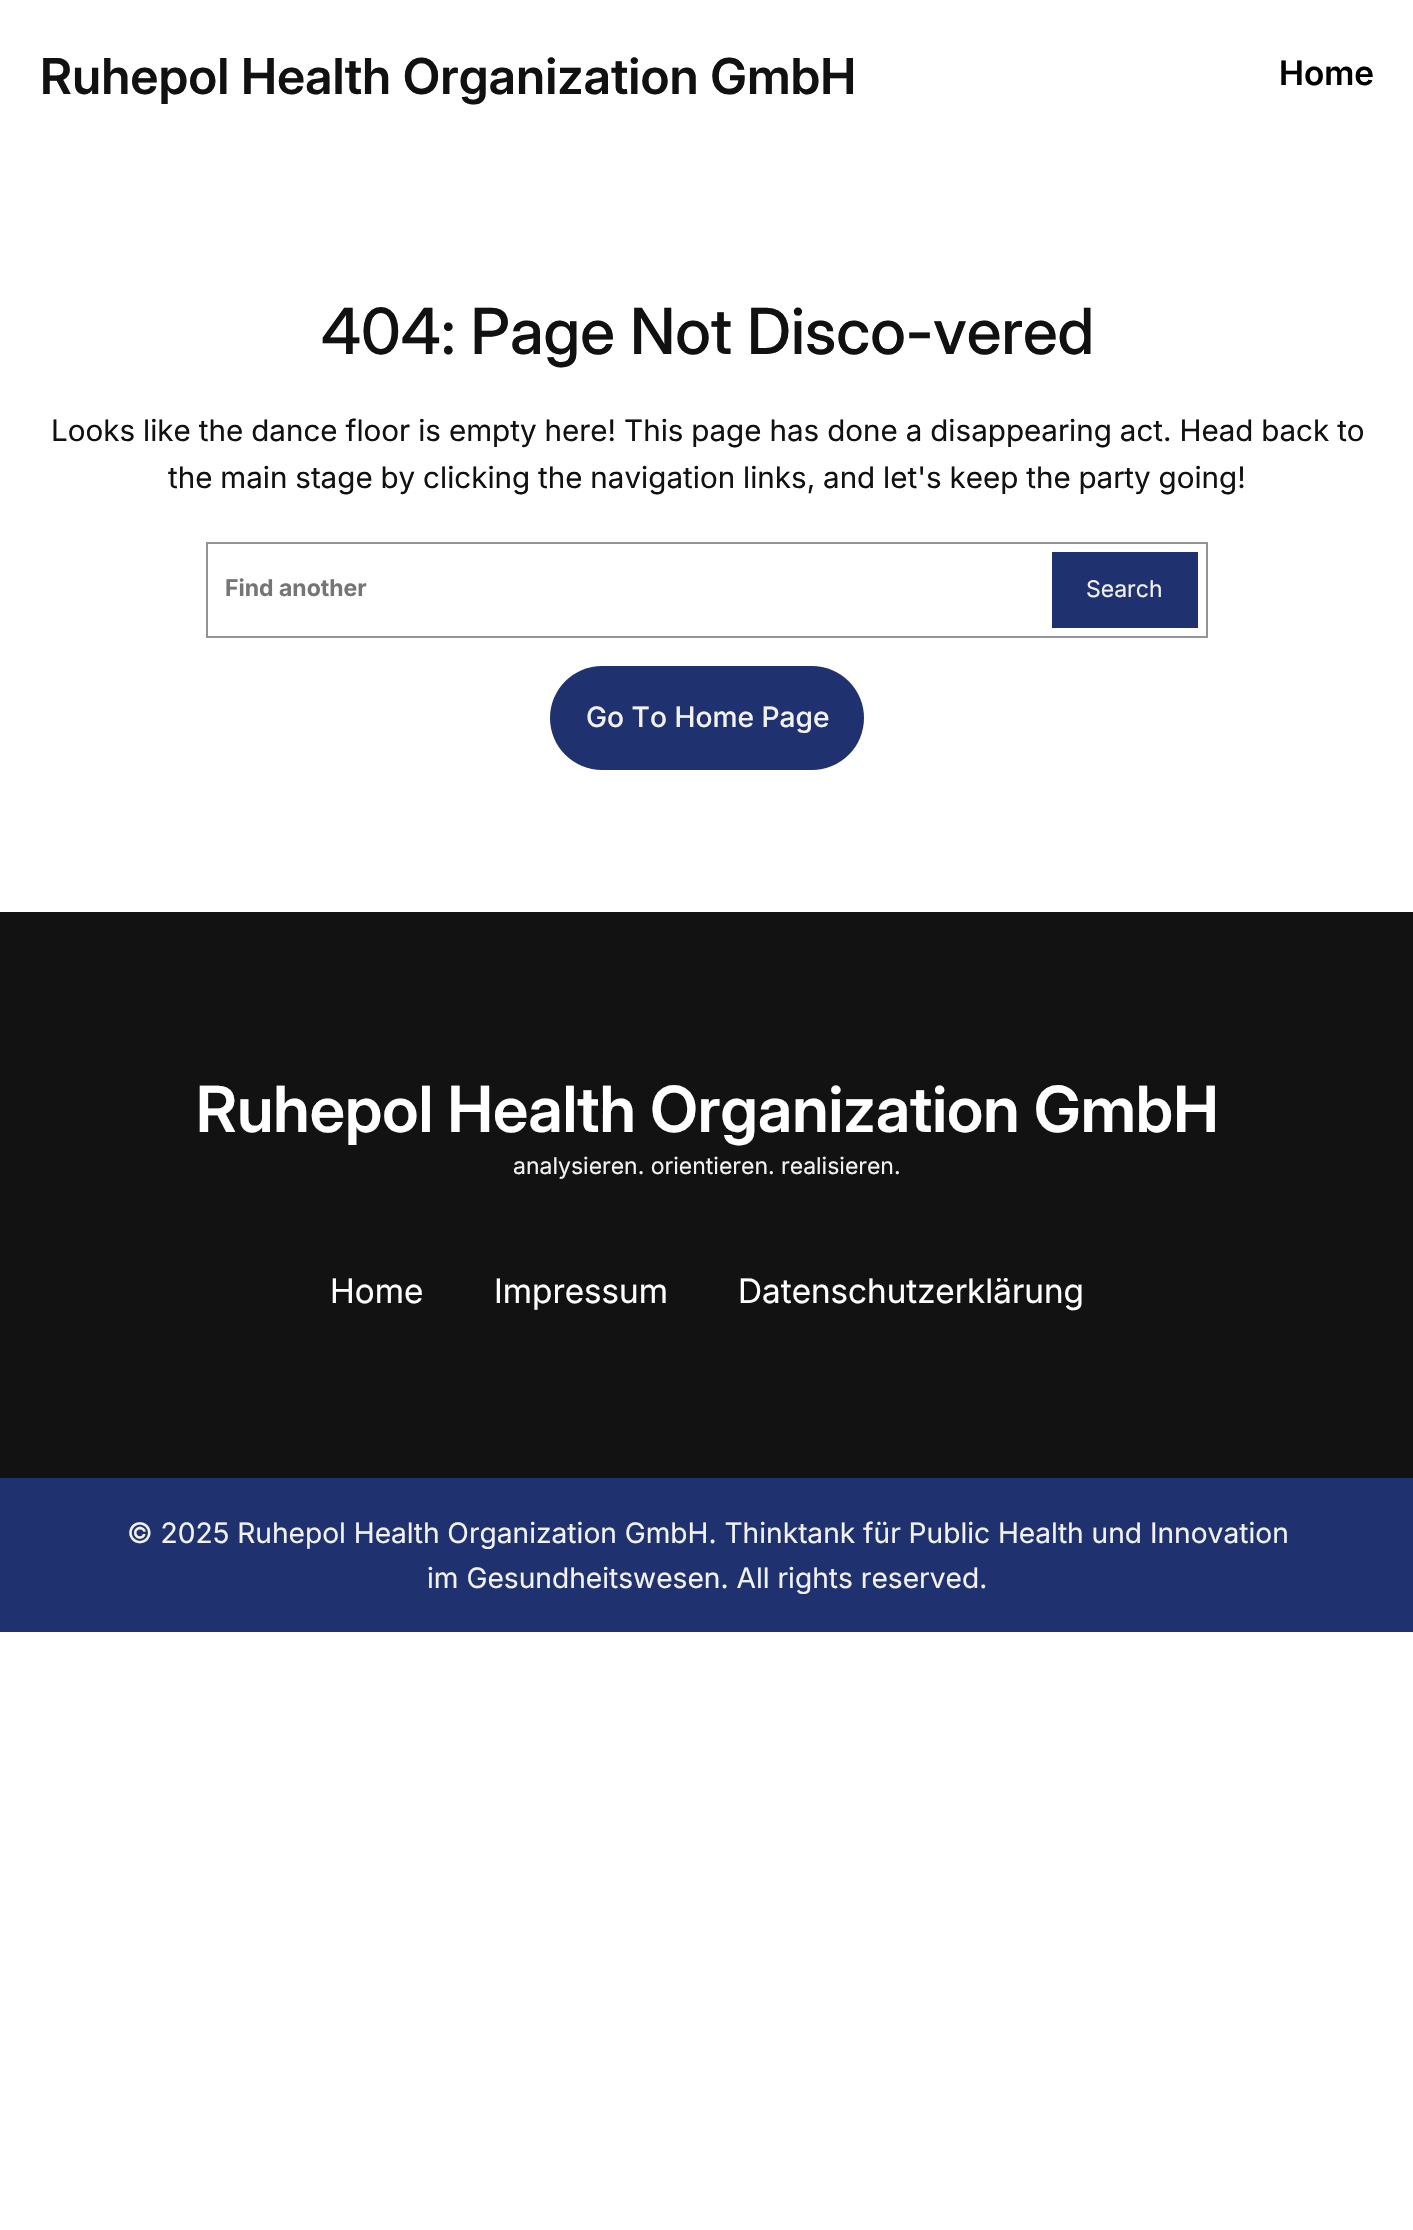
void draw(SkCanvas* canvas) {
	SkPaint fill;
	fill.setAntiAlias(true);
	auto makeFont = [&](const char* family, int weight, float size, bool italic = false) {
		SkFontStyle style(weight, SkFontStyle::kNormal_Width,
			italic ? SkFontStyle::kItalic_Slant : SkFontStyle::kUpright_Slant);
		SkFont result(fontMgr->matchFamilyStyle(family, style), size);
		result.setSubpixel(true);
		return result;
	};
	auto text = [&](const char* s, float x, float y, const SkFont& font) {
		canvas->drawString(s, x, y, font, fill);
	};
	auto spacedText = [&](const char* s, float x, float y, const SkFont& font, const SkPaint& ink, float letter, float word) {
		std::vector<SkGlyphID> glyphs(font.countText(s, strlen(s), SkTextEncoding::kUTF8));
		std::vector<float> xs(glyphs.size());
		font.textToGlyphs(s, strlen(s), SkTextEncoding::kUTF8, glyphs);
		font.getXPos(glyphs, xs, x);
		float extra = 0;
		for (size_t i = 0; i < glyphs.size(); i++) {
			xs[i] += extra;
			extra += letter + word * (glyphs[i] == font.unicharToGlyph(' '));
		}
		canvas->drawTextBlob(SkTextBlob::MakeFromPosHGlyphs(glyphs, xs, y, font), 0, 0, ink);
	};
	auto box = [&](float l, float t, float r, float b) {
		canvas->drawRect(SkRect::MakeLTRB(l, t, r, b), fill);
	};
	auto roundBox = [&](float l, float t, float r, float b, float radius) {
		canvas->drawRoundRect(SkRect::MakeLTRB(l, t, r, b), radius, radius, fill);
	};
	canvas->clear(0xFFFFFFFF);
	fill.setStyle(SkPaint::kStroke_Style);
	fill.setStrokeWidth(2);
	fill.setColor(0xFF949494);
	canvas->drawRect(SkRect::MakeLTRB(207, 543, 1207, 637), fill);
	fill.setStyle(SkPaint::kFill_Style);
	fill.setColor(0xFF1F316F);
	box(1052, 552, 1198, 628);
	roundBox(550, 666, 864, 770, 52);
	fill.setColor(0xFF121212);
	box(0, 912, 1413, 1478);
	fill.setColor(0xFF1F316F);
	box(0, 1478, 1413, 1632);
	auto font1 = makeFont("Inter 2", 600, 49.5f);
	fill.setColor(0xFF111111);
	text("Ruhepol Health Organization GmbH", 40, 94, font1);
	auto font2 = makeFont("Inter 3", 600, 33.6f);
	fill.setColor(0xFF000000);
	text("Home", 1279, 85, font2);
	auto font3 = makeFont("Inter", 500, 63.5f);
	fill.setColor(0xFF111111);
	text("404: Page Not Disco-vered", 321, 354, font3);
	auto font4 = makeFont("Inter", 400, 29.6f);
	spacedText("Looks like the dance floor is empty here! This page has done a disappearing act. Head back to", 51, 441, font4, fill, 0, -0.4f);
	spacedText("the main stage by clicking the navigation links, and let's keep the party going!", 168, 488, font4, fill, 0, -0.5f);
	auto font5 = makeFont("Inter", 700, 23);
	fill.setColor(0xFF757575);
	text("Find another", 225, 596, font5);
	auto font6 = makeFont("Inter", 400, 23);
	fill.setColor(0xFFF2F2F2);
	text("Search", 1086, 597, font6);
	auto font7 = makeFont("Inter 2", 500, 28.15f);
	text("Go To Home Page", 586, 727, font7);
	auto font8 = makeFont("Inter", 600, 63.5f);
	fill.setColor(0xFFFFFFFF);
	text("Ruhepol Health Organization GmbH", 196, 1132, font8);
	fill.setColor(0xFFF2F2F2);
	text("analysieren. orientieren. realisieren.", 513, 1174, font6);
	auto font9 = makeFont("Inter 2", 400, 33.6f);
	fill.setColor(0xFFFFFFFF);
	text("Home", 330, 1303, font9);
	text("Impressum", 494, 1303, font9);
	text("Datenschutzerklärung", 738, 1303, font9);
	auto font10 = makeFont("Inter", 400, 28.15f);
	fill.setColor(0xFFF2F2F2);
	spacedText("© 2025 Ruhepol Health Organization GmbH. Thinktank für Public Health und Innovation", 127, 1543, font10, fill, 0, -0.1f);
	text("im Gesundheitswesen. All rights reserved.", 427, 1588, font10);
}
